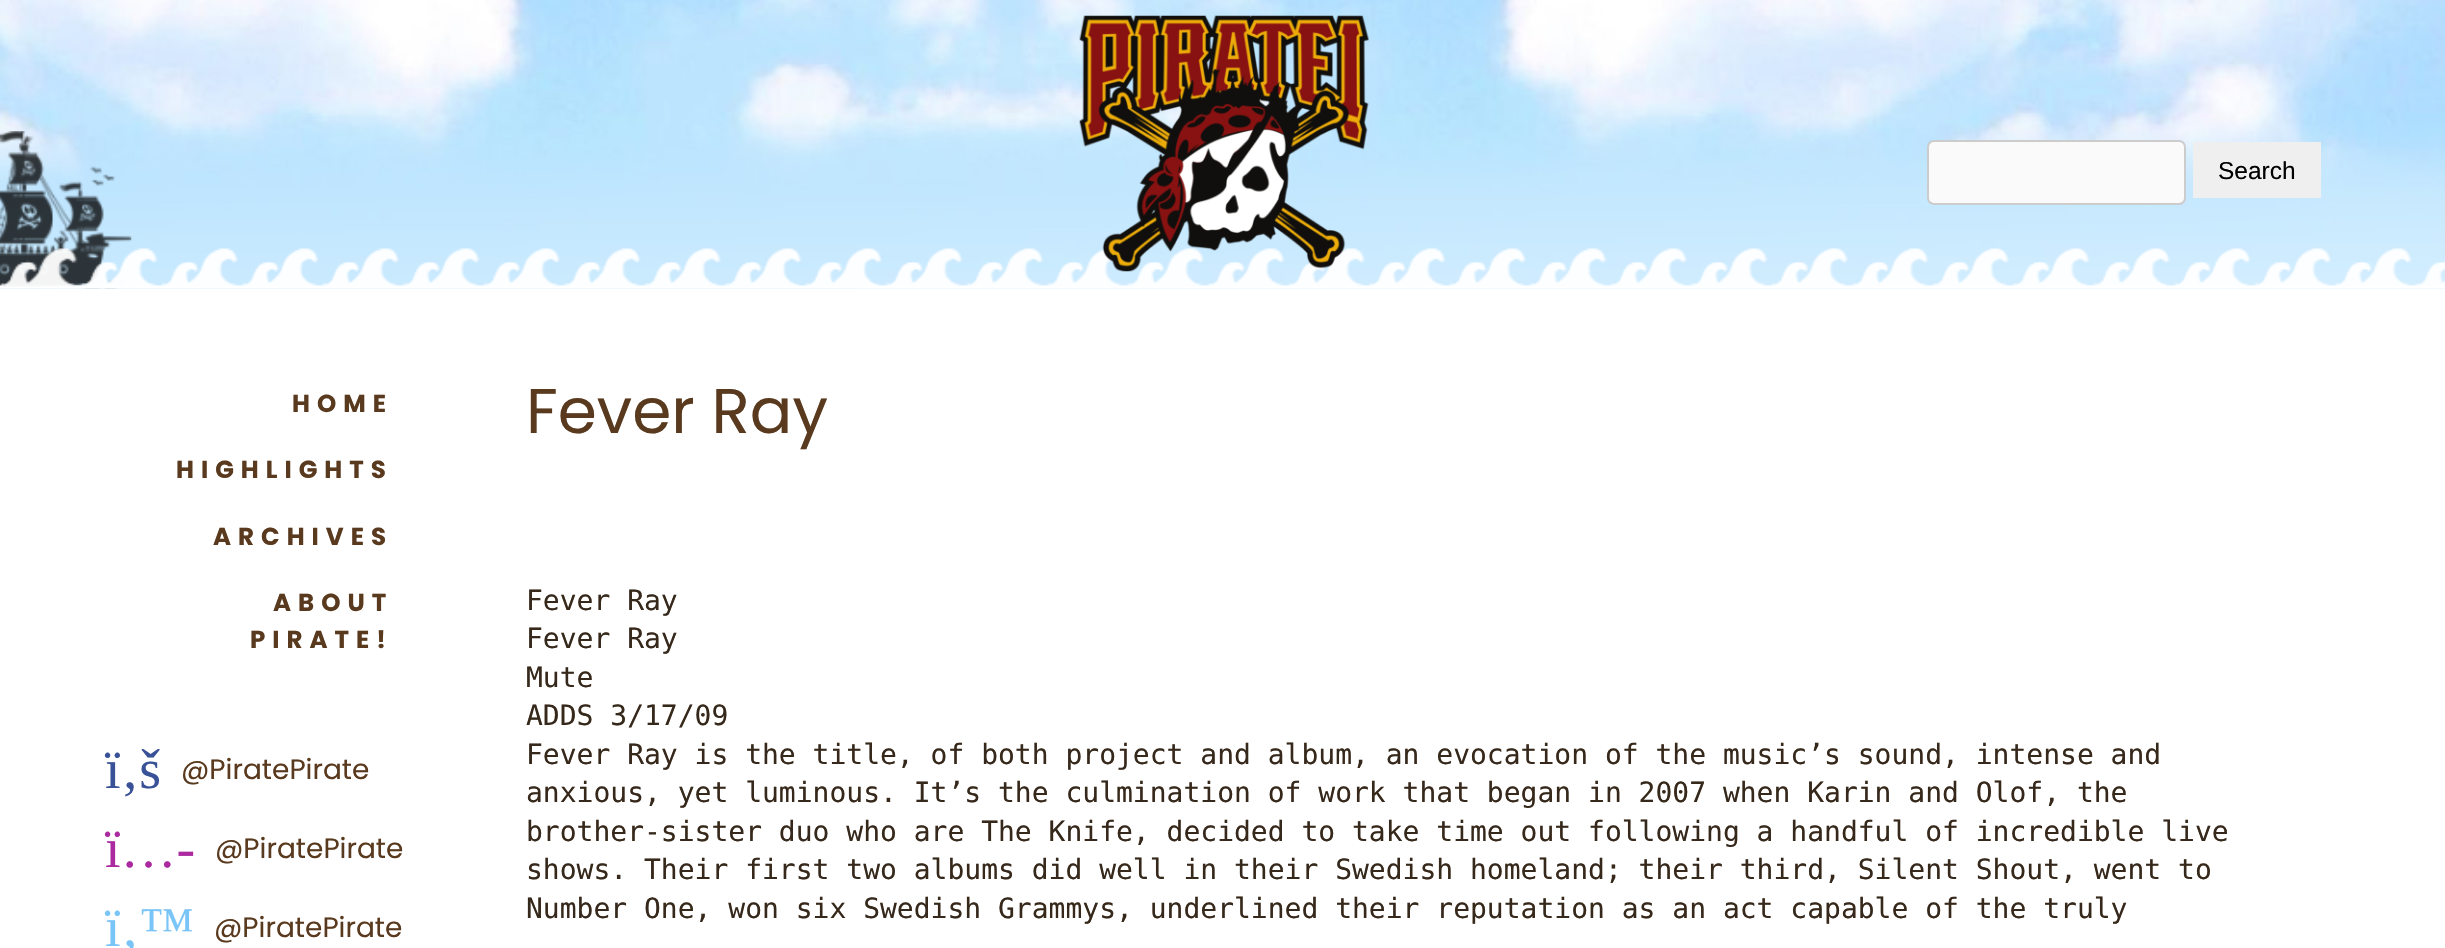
void draw(SkCanvas* canvas) {
	SkPaint fill;
	fill.setAntiAlias(true);
	auto makeFont = [&](const char* family, int weight, float size, bool italic = false) {
		SkFontStyle style(weight, SkFontStyle::kNormal_Width,
			italic ? SkFontStyle::kItalic_Slant : SkFontStyle::kUpright_Slant);
		SkFont result(fontMgr->matchFamilyStyle(family, style), size);
		result.setSubpixel(true);
		return result;
	};
	auto text = [&](const char* s, float x, float y, const SkFont& font) {
		canvas->drawString(s, x, y, font, fill);
	};
	auto spacedText = [&](const char* s, float x, float y, const SkFont& font, const SkPaint& ink, float letter, float word) {
		std::vector<SkGlyphID> glyphs(font.countText(s, strlen(s), SkTextEncoding::kUTF8));
		std::vector<float> xs(glyphs.size());
		font.textToGlyphs(s, strlen(s), SkTextEncoding::kUTF8, glyphs);
		font.getXPos(glyphs, xs, x);
		float extra = 0;
		for (size_t i = 0; i < glyphs.size(); i++) {
			xs[i] += extra;
			extra += letter + word * (glyphs[i] == font.unicharToGlyph(' '));
		}
		canvas->drawTextBlob(SkTextBlob::MakeFromPosHGlyphs(glyphs, xs, y, font), 0, 0, ink);
	};
	auto box = [&](float l, float t, float r, float b) {
		canvas->drawRect(SkRect::MakeLTRB(l, t, r, b), fill);
	};
	auto picture = [&](const char* path, float l, float t, float r, float b) {
		auto image = SkImages::DeferredFromEncodedData(SkData::MakeFromFileName(path));
		canvas->drawImageRect(image, SkRect::MakeLTRB(l, t, r, b), SkSamplingOptions());
	};
	canvas->clear(0xFFFFFFFF);
	picture("image0.png", 0, 0, 2445, 289);
	picture("image3.png", 0, 131, 132, 289);
	picture("image1.png", 0, 248, 2445, 289);
	picture("image2.png", 1079, 15, 1369, 272);
	fill.setColor(0xFFFAFAFA);
	canvas->drawRoundRect(SkRect::MakeLTRB(1928, 141, 2185, 204), 6, 6, fill);
	fill.setStyle(SkPaint::kStroke_Style);
	fill.setStrokeWidth(2);
	fill.setColor(0xFFCCCCCC);
	canvas->drawRoundRect(SkRect::MakeLTRB(1928, 141, 2185, 204), 6, 6, fill);
	fill.setStyle(SkPaint::kFill_Style);
	fill.setColor(0xFFEFEFEF);
	box(2193, 142, 2321, 198);
	auto font1 = makeFont("Liberation Sans", 400, 24.5f);
	fill.setColor(0xFF000000);
	text("Search", 2218, 179, font1);
	auto font2 = makeFont("Poppins", 700, 24.5f);
	fill.setColor(0xFF593A1E);
	spacedText("HOME", 292, 412, font2, fill, 7, 0);
	spacedText("HIGHLIGHTS", 176, 478, font2, fill, 7, 0);
	spacedText("ARCHIVES", 213, 545, font2, fill, 7, 0);
	spacedText("ABOUT", 273, 611, font2, fill, 7, 0);
	spacedText("PIRATE!", 250, 648, font2, fill, 7, 0);
	auto font3 = makeFont("Liberation Serif", 400, 56);
	fill.setColor(0xFF395297);
	text("ï‚š", 105, 788, font3);
	auto font4 = makeFont("Poppins", 400, 28);
	fill.setColor(0xFF593A1E);
	text("@PiratePirate", 181, 779, font4);
	fill.setColor(0xFFAC2AA0);
	text("ï…-", 105, 867, font3);
	fill.setColor(0xFF593A1E);
	text("@PiratePirate", 215, 858, font4);
	fill.setColor(0xFF7AC5F8);
	text("ï‚™", 105, 946, font3);
	fill.setColor(0xFF593A1E);
	text("@PiratePirate", 214, 937, font4);
	auto font5 = makeFont("Poppins", 400, 63);
	text("Fever Ray", 526, 433, font5);
	auto font6 = makeFont("DejaVu Sans Mono", 400, 28);
	fill.setColor(0xFF36281A);
	text("Fever Ray", 526, 610, font6);
	text("Fever Ray", 526, 648, font6);
	text("Mute", 526, 687, font6);
	text("ADDS 3/17/09", 526, 725, font6);
	text("Fever Ray is the title, of both project and album, an evocation of the music’s sound, intense and", 526, 764, font6);
	text("anxious, yet luminous. It’s the culmination of work that began in 2007 when Karin and Olof, the", 526, 802, font6);
	text("brother-sister duo who are The Knife, decided to take time out following a handful of incredible live", 526, 841, font6);
	text("shows. Their first two albums did well in their Swedish homeland; their third, Silent Shout, went to", 526, 879, font6);
	text("Number One, won six Swedish Grammys, underlined their reputation as an act capable of the truly", 526, 918, font6);
}
